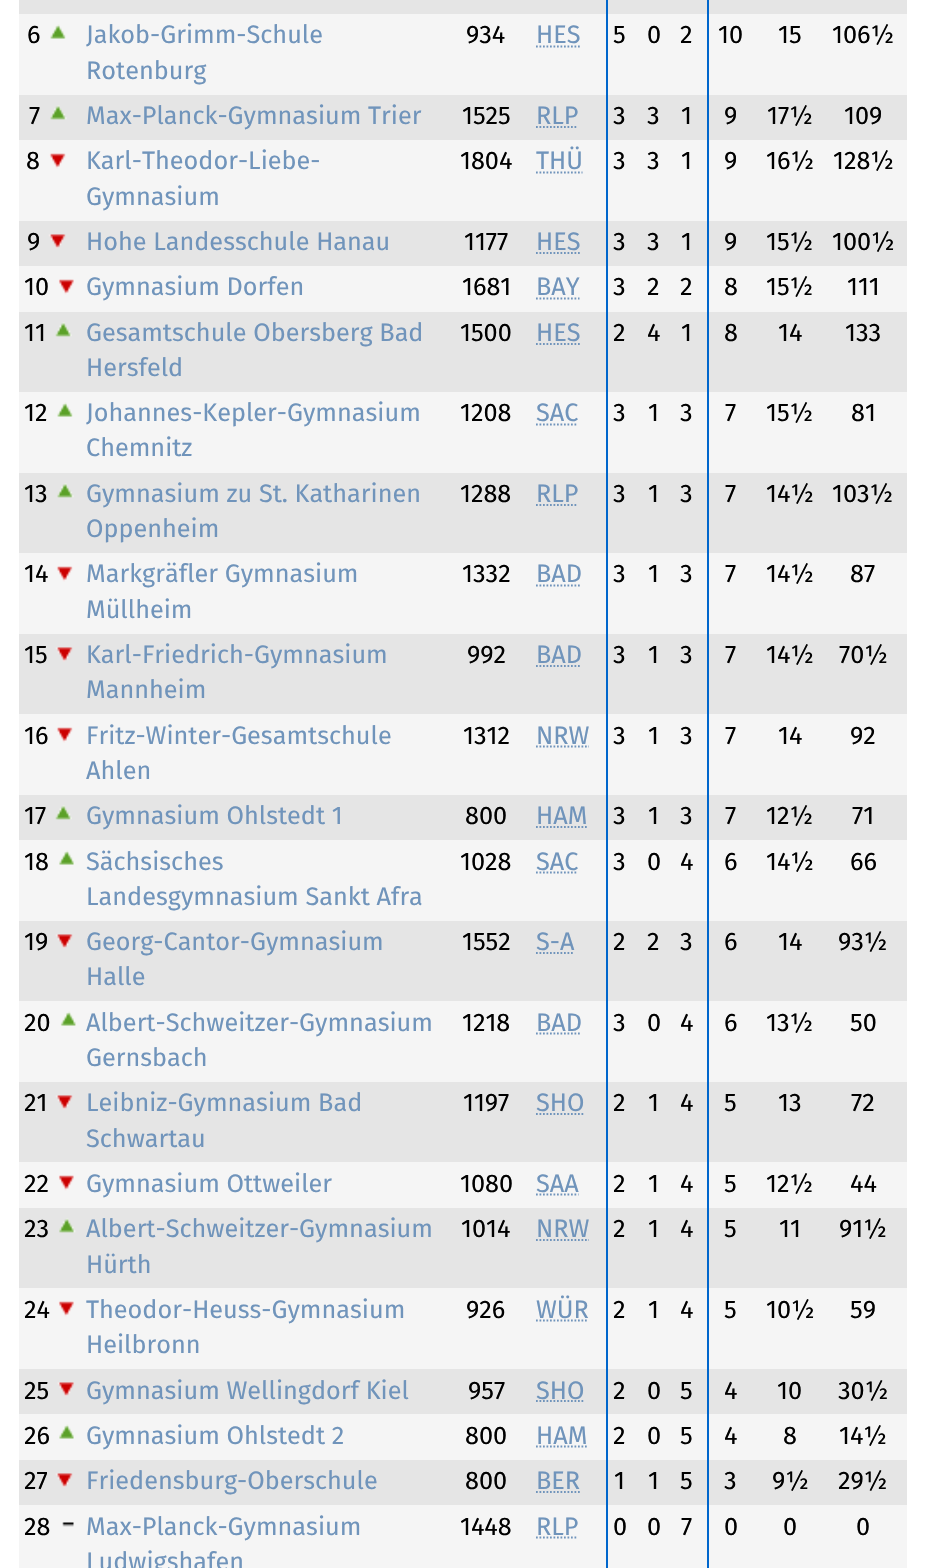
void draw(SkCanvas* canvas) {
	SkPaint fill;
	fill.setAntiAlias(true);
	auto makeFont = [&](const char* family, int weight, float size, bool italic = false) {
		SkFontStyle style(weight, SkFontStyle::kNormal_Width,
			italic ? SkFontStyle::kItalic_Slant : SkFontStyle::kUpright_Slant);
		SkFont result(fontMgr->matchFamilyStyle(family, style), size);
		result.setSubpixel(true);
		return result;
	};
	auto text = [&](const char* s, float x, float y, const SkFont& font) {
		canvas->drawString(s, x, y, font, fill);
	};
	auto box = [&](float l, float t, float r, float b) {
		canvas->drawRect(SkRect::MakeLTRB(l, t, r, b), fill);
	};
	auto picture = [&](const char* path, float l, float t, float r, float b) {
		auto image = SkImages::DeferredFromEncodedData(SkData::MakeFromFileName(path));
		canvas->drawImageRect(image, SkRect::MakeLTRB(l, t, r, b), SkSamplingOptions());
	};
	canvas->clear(0xFFFFFFFF);
	fill.setColor(0xFFE5E5E5);
	box(19, 0, 606, 14);
	box(608, 0, 707, 14);
	box(709, 0, 907, 14);
	fill.setColor(0xFFF5F5F5);
	box(19, 14, 606, 95);
	picture("image0.png", 50, 24, 66, 39);
	fill.setStyle(SkPaint::kStroke_Style);
	fill.setStrokeWidth(1.8f);
	fill.setColor(0xFF7094BB);
	fill.setPathEffect(SkDashPathEffect::Make({{1.75f, 1.75f}}, 0));
	canvas->drawPath(SkPathBuilder().moveTo(536, 46.5f).lineTo(580, 46.5f).detach(), fill);
	fill.setPathEffect(nullptr);
	fill.setStyle(SkPaint::kFill_Style);
	fill.setColor(0xFFF5F5F5);
	box(608, 14, 707, 95);
	box(709, 14, 907, 95);
	fill.setColor(0xFFE5E5E5);
	box(19, 95, 606, 140);
	picture("image1.png", 50, 105, 67, 120);
	fill.setStyle(SkPaint::kStroke_Style);
	fill.setColor(0xFF7094BB);
	fill.setPathEffect(SkDashPathEffect::Make({{1.75f, 1.75f}}, 0));
	canvas->drawPath(SkPathBuilder().moveTo(536, 127).lineTo(578, 127).detach(), fill);
	fill.setPathEffect(nullptr);
	fill.setStyle(SkPaint::kFill_Style);
	fill.setColor(0xFFE5E5E5);
	box(608, 95, 707, 140);
	box(709, 95, 907, 140);
	fill.setColor(0xFFF5F5F5);
	box(19, 140, 606, 221);
	picture("image2.png", 49, 153, 66, 169);
	fill.setStyle(SkPaint::kStroke_Style);
	fill.setColor(0xFF7094BB);
	fill.setPathEffect(SkDashPathEffect::Make({{1.75f, 1.75f}}, 0));
	canvas->drawPath(SkPathBuilder().moveTo(536, 172.5f).lineTo(582.5f, 172.5f).detach(), fill);
	fill.setPathEffect(nullptr);
	fill.setStyle(SkPaint::kFill_Style);
	fill.setColor(0xFFF5F5F5);
	box(608, 140, 707, 221);
	box(709, 140, 907, 221);
	fill.setColor(0xFFE5E5E5);
	box(19, 221, 606, 266);
	picture("image3.png", 48, 234, 66, 249);
	fill.setStyle(SkPaint::kStroke_Style);
	fill.setColor(0xFF7094BB);
	fill.setPathEffect(SkDashPathEffect::Make({{1.75f, 1.75f}}, 0));
	canvas->drawPath(SkPathBuilder().moveTo(536, 253).lineTo(580, 253).detach(), fill);
	fill.setPathEffect(nullptr);
	fill.setStyle(SkPaint::kFill_Style);
	fill.setColor(0xFFE5E5E5);
	box(608, 221, 707, 266);
	box(709, 221, 907, 266);
	fill.setColor(0xFFF5F5F5);
	box(19, 266, 606, 312);
	picture("image4.png", 58, 279, 74, 295);
	fill.setStyle(SkPaint::kStroke_Style);
	fill.setColor(0xFF7094BB);
	fill.setPathEffect(SkDashPathEffect::Make({{1.75f, 1.75f}}, 0));
	canvas->drawPath(SkPathBuilder().moveTo(536, 298.5f).lineTo(579.5f, 298.5f).detach(), fill);
	fill.setPathEffect(nullptr);
	fill.setStyle(SkPaint::kFill_Style);
	fill.setColor(0xFFF5F5F5);
	box(608, 266, 707, 312);
	box(709, 266, 907, 312);
	fill.setColor(0xFFE5E5E5);
	box(19, 312, 606, 392);
	picture("image5.png", 55, 322, 72, 337);
	fill.setStyle(SkPaint::kStroke_Style);
	fill.setColor(0xFF7094BB);
	fill.setPathEffect(SkDashPathEffect::Make({{1.75f, 1.75f}}, 0));
	canvas->drawPath(SkPathBuilder().moveTo(536, 344).lineTo(580, 344).detach(), fill);
	fill.setPathEffect(nullptr);
	fill.setStyle(SkPaint::kFill_Style);
	fill.setColor(0xFFE5E5E5);
	box(608, 312, 707, 392);
	box(709, 312, 907, 392);
	fill.setColor(0xFFF5F5F5);
	box(19, 392, 606, 473);
	picture("image0.png", 57, 402, 73, 417);
	fill.setStyle(SkPaint::kStroke_Style);
	fill.setColor(0xFF7094BB);
	fill.setPathEffect(SkDashPathEffect::Make({{1.75f, 1.75f}}, 0));
	canvas->drawPath(SkPathBuilder().moveTo(536, 424.5f).lineTo(578, 424.5f).detach(), fill);
	fill.setPathEffect(nullptr);
	fill.setStyle(SkPaint::kFill_Style);
	fill.setColor(0xFFF5F5F5);
	box(608, 392, 707, 473);
	box(709, 392, 907, 473);
	fill.setColor(0xFFE5E5E5);
	box(19, 473, 606, 553);
	picture("image1.png", 57, 483, 74, 498);
	fill.setStyle(SkPaint::kStroke_Style);
	fill.setColor(0xFF7094BB);
	fill.setPathEffect(SkDashPathEffect::Make({{1.75f, 1.75f}}, 0));
	canvas->drawPath(SkPathBuilder().moveTo(536, 505).lineTo(578, 505).detach(), fill);
	fill.setPathEffect(nullptr);
	fill.setStyle(SkPaint::kFill_Style);
	fill.setColor(0xFFE5E5E5);
	box(608, 473, 707, 553);
	box(709, 473, 907, 553);
	fill.setColor(0xFFF5F5F5);
	box(19, 553, 606, 634);
	picture("image2.png", 56, 566, 73, 582);
	fill.setStyle(SkPaint::kStroke_Style);
	fill.setColor(0xFF7094BB);
	fill.setPathEffect(SkDashPathEffect::Make({{1.75f, 1.75f}}, 0));
	canvas->drawPath(SkPathBuilder().moveTo(536, 585.5f).lineTo(581.5f, 585.5f).detach(), fill);
	fill.setPathEffect(nullptr);
	fill.setStyle(SkPaint::kFill_Style);
	fill.setColor(0xFFF5F5F5);
	box(608, 553, 707, 634);
	box(709, 553, 907, 634);
	fill.setColor(0xFFE5E5E5);
	box(19, 634, 606, 714);
	picture("image3.png", 55, 647, 73, 662);
	fill.setStyle(SkPaint::kStroke_Style);
	fill.setColor(0xFF7094BB);
	fill.setPathEffect(SkDashPathEffect::Make({{1.75f, 1.75f}}, 0));
	canvas->drawPath(SkPathBuilder().moveTo(536, 666).lineTo(581.5f, 666).detach(), fill);
	fill.setPathEffect(nullptr);
	fill.setStyle(SkPaint::kFill_Style);
	fill.setColor(0xFFE5E5E5);
	box(608, 634, 707, 714);
	box(709, 634, 907, 714);
	fill.setColor(0xFFF5F5F5);
	box(19, 714, 606, 795);
	picture("image2.png", 56, 727, 73, 743);
	fill.setStyle(SkPaint::kStroke_Style);
	fill.setColor(0xFF7094BB);
	fill.setPathEffect(SkDashPathEffect::Make({{1.75f, 1.75f}}, 0));
	canvas->drawPath(SkPathBuilder().moveTo(536, 746.5f).lineTo(589, 746.5f).detach(), fill);
	fill.setPathEffect(nullptr);
	fill.setStyle(SkPaint::kFill_Style);
	fill.setColor(0xFFF5F5F5);
	box(608, 714, 707, 795);
	box(709, 714, 907, 795);
	fill.setColor(0xFFE5E5E5);
	box(19, 795, 606, 840);
	picture("image6.png", 55, 805, 72, 820);
	fill.setStyle(SkPaint::kStroke_Style);
	fill.setColor(0xFF7094BB);
	fill.setPathEffect(SkDashPathEffect::Make({{1.75f, 1.75f}}, 0));
	canvas->drawPath(SkPathBuilder().moveTo(536, 827).lineTo(587, 827).detach(), fill);
	fill.setPathEffect(nullptr);
	fill.setStyle(SkPaint::kFill_Style);
	fill.setColor(0xFFE5E5E5);
	box(608, 795, 707, 840);
	box(709, 795, 907, 840);
	fill.setColor(0xFFF5F5F5);
	box(19, 840, 606, 921);
	picture("image7.png", 59, 850, 75, 865);
	fill.setStyle(SkPaint::kStroke_Style);
	fill.setColor(0xFF7094BB);
	fill.setPathEffect(SkDashPathEffect::Make({{1.75f, 1.75f}}, 0));
	canvas->drawPath(SkPathBuilder().moveTo(536, 872.5f).lineTo(578, 872.5f).detach(), fill);
	fill.setPathEffect(nullptr);
	fill.setStyle(SkPaint::kFill_Style);
	fill.setColor(0xFFF5F5F5);
	box(608, 840, 707, 921);
	box(709, 840, 907, 921);
	fill.setColor(0xFFE5E5E5);
	box(19, 921, 606, 1001);
	picture("image3.png", 55, 934, 73, 949);
	fill.setStyle(SkPaint::kStroke_Style);
	fill.setColor(0xFF7094BB);
	fill.setPathEffect(SkDashPathEffect::Make({{1.75f, 1.75f}}, 0));
	canvas->drawPath(SkPathBuilder().moveTo(536, 953).lineTo(574, 953).detach(), fill);
	fill.setPathEffect(nullptr);
	fill.setStyle(SkPaint::kFill_Style);
	fill.setColor(0xFFE5E5E5);
	box(608, 921, 707, 1001);
	box(709, 921, 907, 1001);
	fill.setColor(0xFFF5F5F5);
	box(19, 1001, 606, 1082);
	picture("image8.png", 60, 1011, 76, 1026);
	fill.setStyle(SkPaint::kStroke_Style);
	fill.setColor(0xFF7094BB);
	fill.setPathEffect(SkDashPathEffect::Make({{1.75f, 1.75f}}, 0));
	canvas->drawPath(SkPathBuilder().moveTo(536, 1033.5f).lineTo(581.5f, 1033.5f).detach(), fill);
	fill.setPathEffect(nullptr);
	fill.setStyle(SkPaint::kFill_Style);
	fill.setColor(0xFFF5F5F5);
	box(608, 1001, 707, 1082);
	box(709, 1001, 907, 1082);
	fill.setColor(0xFFE5E5E5);
	box(19, 1082, 606, 1162);
	picture("image3.png", 55, 1095, 73, 1110);
	fill.setStyle(SkPaint::kStroke_Style);
	fill.setColor(0xFF7094BB);
	fill.setPathEffect(SkDashPathEffect::Make({{1.75f, 1.75f}}, 0));
	canvas->drawPath(SkPathBuilder().moveTo(536, 1114).lineTo(584, 1114).detach(), fill);
	fill.setPathEffect(nullptr);
	fill.setStyle(SkPaint::kFill_Style);
	fill.setColor(0xFFE5E5E5);
	box(608, 1082, 707, 1162);
	box(709, 1082, 907, 1162);
	fill.setColor(0xFFF5F5F5);
	box(19, 1162, 606, 1208);
	picture("image4.png", 58, 1175, 74, 1191);
	fill.setStyle(SkPaint::kStroke_Style);
	fill.setColor(0xFF7094BB);
	fill.setPathEffect(SkDashPathEffect::Make({{1.75f, 1.75f}}, 0));
	canvas->drawPath(SkPathBuilder().moveTo(536, 1194.5f).lineTo(578.5f, 1194.5f).detach(), fill);
	fill.setPathEffect(nullptr);
	fill.setStyle(SkPaint::kFill_Style);
	fill.setColor(0xFFF5F5F5);
	box(608, 1162, 707, 1208);
	box(709, 1162, 907, 1208);
	fill.setColor(0xFFE5E5E5);
	box(19, 1208, 606, 1288);
	picture("image9.png", 59, 1218, 76, 1233);
	fill.setStyle(SkPaint::kStroke_Style);
	fill.setColor(0xFF7094BB);
	fill.setPathEffect(SkDashPathEffect::Make({{1.75f, 1.75f}}, 0));
	canvas->drawPath(SkPathBuilder().moveTo(536, 1240).lineTo(589, 1240).detach(), fill);
	fill.setPathEffect(nullptr);
	fill.setStyle(SkPaint::kFill_Style);
	fill.setColor(0xFFE5E5E5);
	box(608, 1208, 707, 1288);
	box(709, 1208, 907, 1288);
	fill.setColor(0xFFF5F5F5);
	box(19, 1288, 606, 1369);
	picture("image4.png", 58, 1301, 74, 1317);
	fill.setStyle(SkPaint::kStroke_Style);
	fill.setColor(0xFF7094BB);
	fill.setPathEffect(SkDashPathEffect::Make({{1.75f, 1.75f}}, 0));
	canvas->drawPath(SkPathBuilder().moveTo(536, 1320.5f).lineTo(588.5f, 1320.5f).detach(), fill);
	fill.setPathEffect(nullptr);
	fill.setStyle(SkPaint::kFill_Style);
	fill.setColor(0xFFF5F5F5);
	box(608, 1288, 707, 1369);
	box(709, 1288, 907, 1369);
	fill.setColor(0xFFE5E5E5);
	box(19, 1369, 606, 1414);
	picture("image10.png", 57, 1382, 74, 1397);
	fill.setStyle(SkPaint::kStroke_Style);
	fill.setColor(0xFF7094BB);
	fill.setPathEffect(SkDashPathEffect::Make({{1.75f, 1.75f}}, 0));
	canvas->drawPath(SkPathBuilder().moveTo(536, 1401).lineTo(584, 1401).detach(), fill);
	fill.setPathEffect(nullptr);
	fill.setStyle(SkPaint::kFill_Style);
	fill.setColor(0xFFE5E5E5);
	box(608, 1369, 707, 1414);
	box(709, 1369, 907, 1414);
	fill.setColor(0xFFF5F5F5);
	box(19, 1414, 606, 1460);
	picture("image7.png", 59, 1424, 75, 1439);
	fill.setStyle(SkPaint::kStroke_Style);
	fill.setColor(0xFF7094BB);
	fill.setPathEffect(SkDashPathEffect::Make({{1.75f, 1.75f}}, 0));
	canvas->drawPath(SkPathBuilder().moveTo(536, 1446.5f).lineTo(587, 1446.5f).detach(), fill);
	fill.setPathEffect(nullptr);
	fill.setStyle(SkPaint::kFill_Style);
	fill.setColor(0xFFF5F5F5);
	box(608, 1414, 707, 1460);
	box(709, 1414, 907, 1460);
	fill.setColor(0xFFE5E5E5);
	box(19, 1460, 606, 1505);
	picture("image3.png", 55, 1473, 73, 1488);
	fill.setStyle(SkPaint::kStroke_Style);
	fill.setColor(0xFF7094BB);
	fill.setPathEffect(SkDashPathEffect::Make({{1.75f, 1.75f}}, 0));
	canvas->drawPath(SkPathBuilder().moveTo(536, 1492).lineTo(580, 1492).detach(), fill);
	fill.setPathEffect(nullptr);
	fill.setStyle(SkPaint::kFill_Style);
	fill.setColor(0xFFE5E5E5);
	box(608, 1460, 707, 1505);
	box(709, 1460, 907, 1505);
	fill.setColor(0xFFF5F5F5);
	box(19, 1505, 606, 1568);
	picture("image11.png", 62, 1522, 74, 1527);
	fill.setStyle(SkPaint::kStroke_Style);
	fill.setColor(0xFF7094BB);
	fill.setPathEffect(SkDashPathEffect::Make({{1.75f, 1.75f}}, 0));
	canvas->drawPath(SkPathBuilder().moveTo(536, 1537.5f).lineTo(578, 1537.5f).detach(), fill);
	fill.setPathEffect(nullptr);
	fill.setStyle(SkPaint::kFill_Style);
	fill.setColor(0xFFF5F5F5);
	box(608, 1505, 707, 1568);
	fill.setColor(0xFF0066CC);
	box(606, 0, 608, 1568);
	box(707, 0, 709, 1568);
	fill.setColor(0xFFF5F5F5);
	box(709, 1505, 907, 1568);
	auto font1 = makeFont("Fira Sans", 400, 25.25f);
	fill.setColor(0xFF000000);
	text("6", 27, 43, font1);
	fill.setColor(0xFF7094BB);
	text("Jakob-Grimm-Schule", 86, 43, font1);
	text("Rotenburg", 86, 79, font1);
	fill.setColor(0xFF000000);
	text("934", 466, 43, font1);
	fill.setColor(0xFF7094BB);
	text("HES", 536, 43, font1);
	fill.setColor(0xFF000000);
	text("5", 613, 43, font1);
	text("0", 647, 43, font1);
	text("2", 680, 43, font1);
	text("10", 718, 43, font1);
	text("15", 778, 43, font1);
	text("106½", 832, 43, font1);
	text("7", 29, 124, font1);
	fill.setColor(0xFF7094BB);
	text("Max-Planck-Gymnasium Trier", 86, 124, font1);
	fill.setColor(0xFF000000);
	text("1525", 462, 124, font1);
	fill.setColor(0xFF7094BB);
	text("RLP", 536, 124, font1);
	fill.setColor(0xFF000000);
	text("3", 613, 124, font1);
	text("3", 647, 124, font1);
	text("1", 681, 124, font1);
	text("9", 724, 124, font1);
	text("17½", 767, 124, font1);
	text("109", 844, 124, font1);
	text("8", 26, 169, font1);
	fill.setColor(0xFF7094BB);
	text("Karl-Theodor-Liebe-", 86, 169, font1);
	text("Gymnasium", 86, 205, font1);
	fill.setColor(0xFF000000);
	text("1804", 460, 169, font1);
	fill.setColor(0xFF7094BB);
	text("THÜ", 536, 169, font1);
	fill.setColor(0xFF000000);
	text("3", 613, 169, font1);
	text("3", 647, 169, font1);
	text("1", 681, 169, font1);
	text("9", 724, 169, font1);
	text("16½", 766, 169, font1);
	text("128½", 833, 169, font1);
	text("9", 27, 250, font1);
	fill.setColor(0xFF7094BB);
	text("Hohe Landesschule Hanau", 86, 250, font1);
	fill.setColor(0xFF000000);
	text("1177", 464, 250, font1);
	fill.setColor(0xFF7094BB);
	text("HES", 536, 250, font1);
	fill.setColor(0xFF000000);
	text("3", 613, 250, font1);
	text("3", 647, 250, font1);
	text("1", 681, 250, font1);
	text("9", 724, 250, font1);
	text("15½", 766, 250, font1);
	text("100½", 832, 250, font1);
	text("10", 24, 295, font1);
	fill.setColor(0xFF7094BB);
	text("Gymnasium Dorfen", 86, 295, font1);
	fill.setColor(0xFF000000);
	text("1681", 462, 295, font1);
	fill.setColor(0xFF7094BB);
	text("BAY", 536, 295, font1);
	fill.setColor(0xFF000000);
	text("3", 613, 295, font1);
	text("2", 647, 295, font1);
	text("2", 680, 295, font1);
	text("8", 724, 295, font1);
	text("15½", 766, 295, font1);
	text("111", 847, 295, font1);
	text("11", 24, 341, font1);
	fill.setColor(0xFF7094BB);
	text("Gesamtschule Obersberg Bad", 86, 341, font1);
	text("Hersfeld", 86, 376, font1);
	fill.setColor(0xFF000000);
	text("1500", 460, 341, font1);
	fill.setColor(0xFF7094BB);
	text("HES", 536, 341, font1);
	fill.setColor(0xFF000000);
	text("2", 613, 341, font1);
	text("4", 647, 341, font1);
	text("1", 681, 341, font1);
	text("8", 724, 341, font1);
	text("14", 778, 341, font1);
	text("133", 845, 341, font1);
	text("12", 24, 421, font1);
	fill.setColor(0xFF7094BB);
	text("Johannes-Kepler-Gymnasium", 86, 421, font1);
	text("Chemnitz", 86, 456, font1);
	fill.setColor(0xFF000000);
	text("1208", 460, 421, font1);
	fill.setColor(0xFF7094BB);
	text("SAC", 536, 421, font1);
	fill.setColor(0xFF000000);
	text("3", 613, 421, font1);
	text("1", 648, 421, font1);
	text("3", 680, 421, font1);
	text("7", 725, 421, font1);
	text("15½", 766, 421, font1);
	text("81", 851, 421, font1);
	text("13", 24, 502, font1);
	fill.setColor(0xFF7094BB);
	text("Gymnasium zu St. Katharinen", 86, 502, font1);
	text("Oppenheim", 86, 537, font1);
	fill.setColor(0xFF000000);
	text("1288", 460, 502, font1);
	fill.setColor(0xFF7094BB);
	text("RLP", 536, 502, font1);
	fill.setColor(0xFF000000);
	text("3", 613, 502, font1);
	text("1", 648, 502, font1);
	text("3", 680, 502, font1);
	text("7", 725, 502, font1);
	text("14½", 766, 502, font1);
	text("103½", 832, 502, font1);
	text("14", 24, 582, font1);
	fill.setColor(0xFF7094BB);
	text("Markgräfler Gymnasium", 86, 582, font1);
	text("Müllheim", 86, 618, font1);
	fill.setColor(0xFF000000);
	text("1332", 462, 582, font1);
	fill.setColor(0xFF7094BB);
	text("BAD", 536, 582, font1);
	fill.setColor(0xFF000000);
	text("3", 613, 582, font1);
	text("1", 648, 582, font1);
	text("3", 680, 582, font1);
	text("7", 725, 582, font1);
	text("14½", 766, 582, font1);
	text("87", 850, 582, font1);
	text("15", 24, 663, font1);
	fill.setColor(0xFF7094BB);
	text("Karl-Friedrich-Gymnasium", 86, 663, font1);
	text("Mannheim", 86, 698, font1);
	fill.setColor(0xFF000000);
	text("992", 467, 663, font1);
	fill.setColor(0xFF7094BB);
	text("BAD", 536, 663, font1);
	fill.setColor(0xFF000000);
	text("3", 613, 663, font1);
	text("1", 648, 663, font1);
	text("3", 680, 663, font1);
	text("7", 725, 663, font1);
	text("14½", 766, 663, font1);
	text("70½", 839, 663, font1);
	text("16", 24, 744, font1);
	fill.setColor(0xFF7094BB);
	text("Fritz-Winter-Gesamtschule", 86, 744, font1);
	text("Ahlen", 86, 779, font1);
	fill.setColor(0xFF000000);
	text("1312", 463, 744, font1);
	fill.setColor(0xFF7094BB);
	text("NRW", 536, 744, font1);
	fill.setColor(0xFF000000);
	text("3", 613, 744, font1);
	text("1", 648, 744, font1);
	text("3", 680, 744, font1);
	text("7", 725, 744, font1);
	text("14", 778, 744, font1);
	text("92", 850, 744, font1);
	text("17", 24, 824, font1);
	fill.setColor(0xFF7094BB);
	text("Gymnasium Ohlstedt 1", 86, 824, font1);
	fill.setColor(0xFF000000);
	text("800", 465, 824, font1);
	fill.setColor(0xFF7094BB);
	text("HAM", 536, 824, font1);
	fill.setColor(0xFF000000);
	text("3", 613, 824, font1);
	text("1", 648, 824, font1);
	text("3", 680, 824, font1);
	text("7", 725, 824, font1);
	text("12½", 766, 824, font1);
	text("71", 852, 824, font1);
	text("18", 24, 870, font1);
	fill.setColor(0xFF7094BB);
	text("Sächsisches", 86, 870, font1);
	text("Landesgymnasium Sankt Afra", 86, 905, font1);
	fill.setColor(0xFF000000);
	text("1028", 460, 870, font1);
	fill.setColor(0xFF7094BB);
	text("SAC", 536, 870, font1);
	fill.setColor(0xFF000000);
	text("3", 613, 870, font1);
	text("0", 647, 870, font1);
	text("4", 680, 870, font1);
	text("6", 724, 870, font1);
	text("14½", 766, 870, font1);
	text("66", 850, 870, font1);
	text("19", 24, 950, font1);
	fill.setColor(0xFF7094BB);
	text("Georg-Cantor-Gymnasium", 86, 950, font1);
	text("Halle", 86, 985, font1);
	fill.setColor(0xFF000000);
	text("1552", 462, 950, font1);
	fill.setColor(0xFF7094BB);
	text("S-A", 536, 950, font1);
	fill.setColor(0xFF000000);
	text("2", 613, 950, font1);
	text("2", 647, 950, font1);
	text("3", 680, 950, font1);
	text("6", 724, 950, font1);
	text("14", 778, 950, font1);
	text("93½", 838, 950, font1);
	text("20", 24, 1031, font1);
	fill.setColor(0xFF7094BB);
	text("Albert-Schweitzer-Gymnasium", 86, 1031, font1);
	text("Gernsbach", 86, 1066, font1);
	fill.setColor(0xFF000000);
	text("1218", 462, 1031, font1);
	fill.setColor(0xFF7094BB);
	text("BAD", 536, 1031, font1);
	fill.setColor(0xFF000000);
	text("3", 613, 1031, font1);
	text("0", 647, 1031, font1);
	text("4", 680, 1031, font1);
	text("6", 724, 1031, font1);
	text("13½", 766, 1031, font1);
	text("50", 850, 1031, font1);
	text("21", 24, 1111, font1);
	fill.setColor(0xFF7094BB);
	text("Leibniz-Gymnasium Bad", 86, 1111, font1);
	text("Schwartau", 86, 1147, font1);
	fill.setColor(0xFF000000);
	text("1197", 463, 1111, font1);
	fill.setColor(0xFF7094BB);
	text("SHO", 536, 1111, font1);
	fill.setColor(0xFF000000);
	text("2", 613, 1111, font1);
	text("1", 648, 1111, font1);
	text("4", 680, 1111, font1);
	text("5", 724, 1111, font1);
	text("13", 778, 1111, font1);
	text("72", 851, 1111, font1);
	text("22", 24, 1192, font1);
	fill.setColor(0xFF7094BB);
	text("Gymnasium Ottweiler", 86, 1192, font1);
	fill.setColor(0xFF000000);
	text("1080", 460, 1192, font1);
	fill.setColor(0xFF7094BB);
	text("SAA", 536, 1192, font1);
	fill.setColor(0xFF000000);
	text("2", 613, 1192, font1);
	text("1", 648, 1192, font1);
	text("4", 680, 1192, font1);
	text("5", 724, 1192, font1);
	text("12½", 766, 1192, font1);
	text("44", 850, 1192, font1);
	text("23", 24, 1237, font1);
	fill.setColor(0xFF7094BB);
	text("Albert-Schweitzer-Gymnasium", 86, 1237, font1);
	text("Hürth", 86, 1273, font1);
	fill.setColor(0xFF000000);
	text("1014", 461, 1237, font1);
	fill.setColor(0xFF7094BB);
	text("NRW", 536, 1237, font1);
	fill.setColor(0xFF000000);
	text("2", 613, 1237, font1);
	text("1", 648, 1237, font1);
	text("4", 680, 1237, font1);
	text("5", 724, 1237, font1);
	text("11", 779, 1237, font1);
	text("91½", 839, 1237, font1);
	text("24", 24, 1318, font1);
	fill.setColor(0xFF7094BB);
	text("Theodor-Heuss-Gymnasium", 86, 1318, font1);
	text("Heilbronn", 86, 1353, font1);
	fill.setColor(0xFF000000);
	text("926", 466, 1318, font1);
	fill.setColor(0xFF7094BB);
	text("WÜR", 536, 1318, font1);
	fill.setColor(0xFF000000);
	text("2", 613, 1318, font1);
	text("1", 648, 1318, font1);
	text("4", 680, 1318, font1);
	text("5", 724, 1318, font1);
	text("10½", 766, 1318, font1);
	text("59", 850, 1318, font1);
	text("25", 24, 1399, font1);
	fill.setColor(0xFF7094BB);
	text("Gymnasium Wellingdorf Kiel", 86, 1399, font1);
	fill.setColor(0xFF000000);
	text("957", 468, 1399, font1);
	fill.setColor(0xFF7094BB);
	text("SHO", 536, 1399, font1);
	fill.setColor(0xFF000000);
	text("2", 613, 1399, font1);
	text("0", 647, 1399, font1);
	text("5", 680, 1399, font1);
	text("4", 724, 1399, font1);
	text("10", 777, 1399, font1);
	text("30½", 838, 1399, font1);
	text("26", 24, 1444, font1);
	fill.setColor(0xFF7094BB);
	text("Gymnasium Ohlstedt 2", 86, 1444, font1);
	fill.setColor(0xFF000000);
	text("800", 465, 1444, font1);
	fill.setColor(0xFF7094BB);
	text("HAM", 536, 1444, font1);
	fill.setColor(0xFF000000);
	text("2", 613, 1444, font1);
	text("0", 647, 1444, font1);
	text("5", 680, 1444, font1);
	text("4", 724, 1444, font1);
	text("8", 783, 1444, font1);
	text("14½", 839, 1444, font1);
	text("27", 24, 1489, font1);
	fill.setColor(0xFF7094BB);
	text("Friedensburg-Oberschule", 86, 1489, font1);
	fill.setColor(0xFF000000);
	text("800", 465, 1489, font1);
	fill.setColor(0xFF7094BB);
	text("BER", 536, 1489, font1);
	fill.setColor(0xFF000000);
	text("1", 614, 1489, font1);
	text("1", 648, 1489, font1);
	text("5", 680, 1489, font1);
	text("3", 724, 1489, font1);
	text("9½", 772, 1489, font1);
	text("29½", 838, 1489, font1);
	text("28", 24, 1535, font1);
	fill.setColor(0xFF7094BB);
	text("Max-Planck-Gymnasium", 86, 1535, font1);
	text("Ludwigshafen", 86, 1570, font1);
	fill.setColor(0xFF000000);
	text("1448", 460, 1535, font1);
	fill.setColor(0xFF7094BB);
	text("RLP", 536, 1535, font1);
	fill.setColor(0xFF000000);
	text("0", 613, 1535, font1);
	text("0", 647, 1535, font1);
	text("7", 681, 1535, font1);
	text("0", 724, 1535, font1);
	text("0", 783, 1535, font1);
	text("0", 856, 1535, font1);
}
